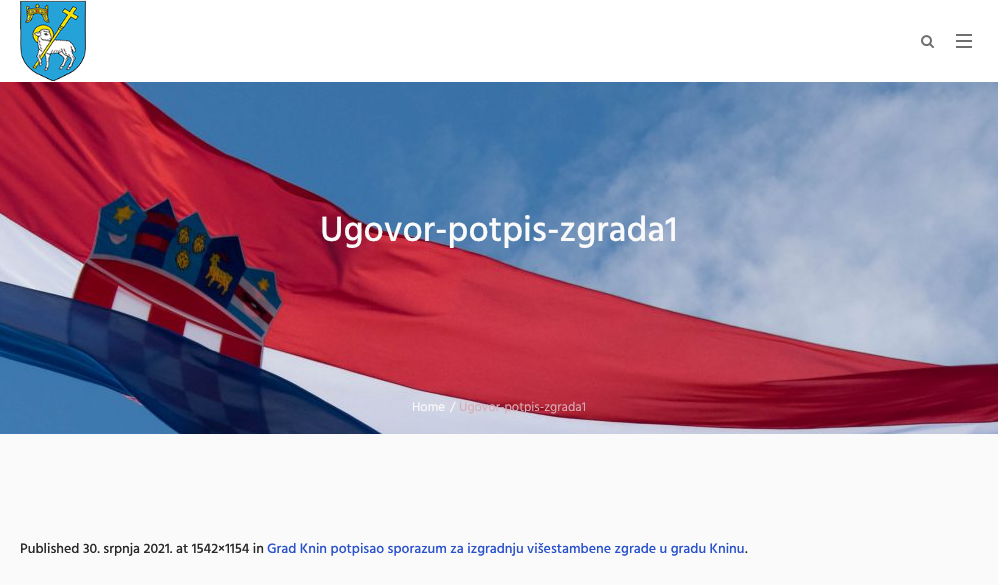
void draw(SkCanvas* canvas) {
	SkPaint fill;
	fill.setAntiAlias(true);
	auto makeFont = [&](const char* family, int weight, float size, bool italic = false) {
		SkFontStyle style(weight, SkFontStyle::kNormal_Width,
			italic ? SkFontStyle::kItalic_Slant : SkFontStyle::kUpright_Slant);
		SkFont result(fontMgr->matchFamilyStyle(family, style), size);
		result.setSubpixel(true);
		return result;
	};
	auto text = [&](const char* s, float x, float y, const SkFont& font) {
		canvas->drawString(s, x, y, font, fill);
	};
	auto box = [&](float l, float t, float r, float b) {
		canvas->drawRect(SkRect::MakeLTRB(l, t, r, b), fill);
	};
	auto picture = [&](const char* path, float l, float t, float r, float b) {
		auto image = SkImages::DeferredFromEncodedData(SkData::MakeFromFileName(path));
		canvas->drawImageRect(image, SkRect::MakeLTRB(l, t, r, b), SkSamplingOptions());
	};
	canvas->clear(0xFFFAFAFA);
	fill.setColor(0xFFFFFFFF);
	box(0, 0, 998, 82);
	picture("image0.png", 20, 0, 86, 81);
	picture("image1.png", 921, 35, 934, 48);
	fill.setColor(0xFF6F6F6F);
	box(956, 40, 972, 42);
	box(956, 34, 972, 36);
	box(956, 46, 972, 48);
	picture("image2.png", 0, 82, 998, 434);
	auto font1 = makeFont("Hind", 500, 36);
	fill.setColor(0xFFFAFAFA);
	text("Ugovor-potpis-zgrada1", 320, 241, font1);
	auto font2 = makeFont("Hind", 400, 13);
	text("Home", 412, 411, font2);
	text("/", 450, 411, font2);
	fill.setColor(0xFFD8ABB4);
	text("Ugovor-potpis-zgrada1", 459, 411, font2);
	auto font3 = makeFont("Hind", 500, 14);
	fill.setColor(0xFF282828);
	text("Published 30. srpnja 2021. at 1542×1154 in", 20, 553, font3);
	fill.setColor(0xFF2851CC);
	text("Grad Knin potpisao sporazum za izgradnju višestambene zgrade u gradu Kninu", 267, 553, font3);
	fill.setColor(0xFF282828);
	text(".", 745, 553, font3);
}
